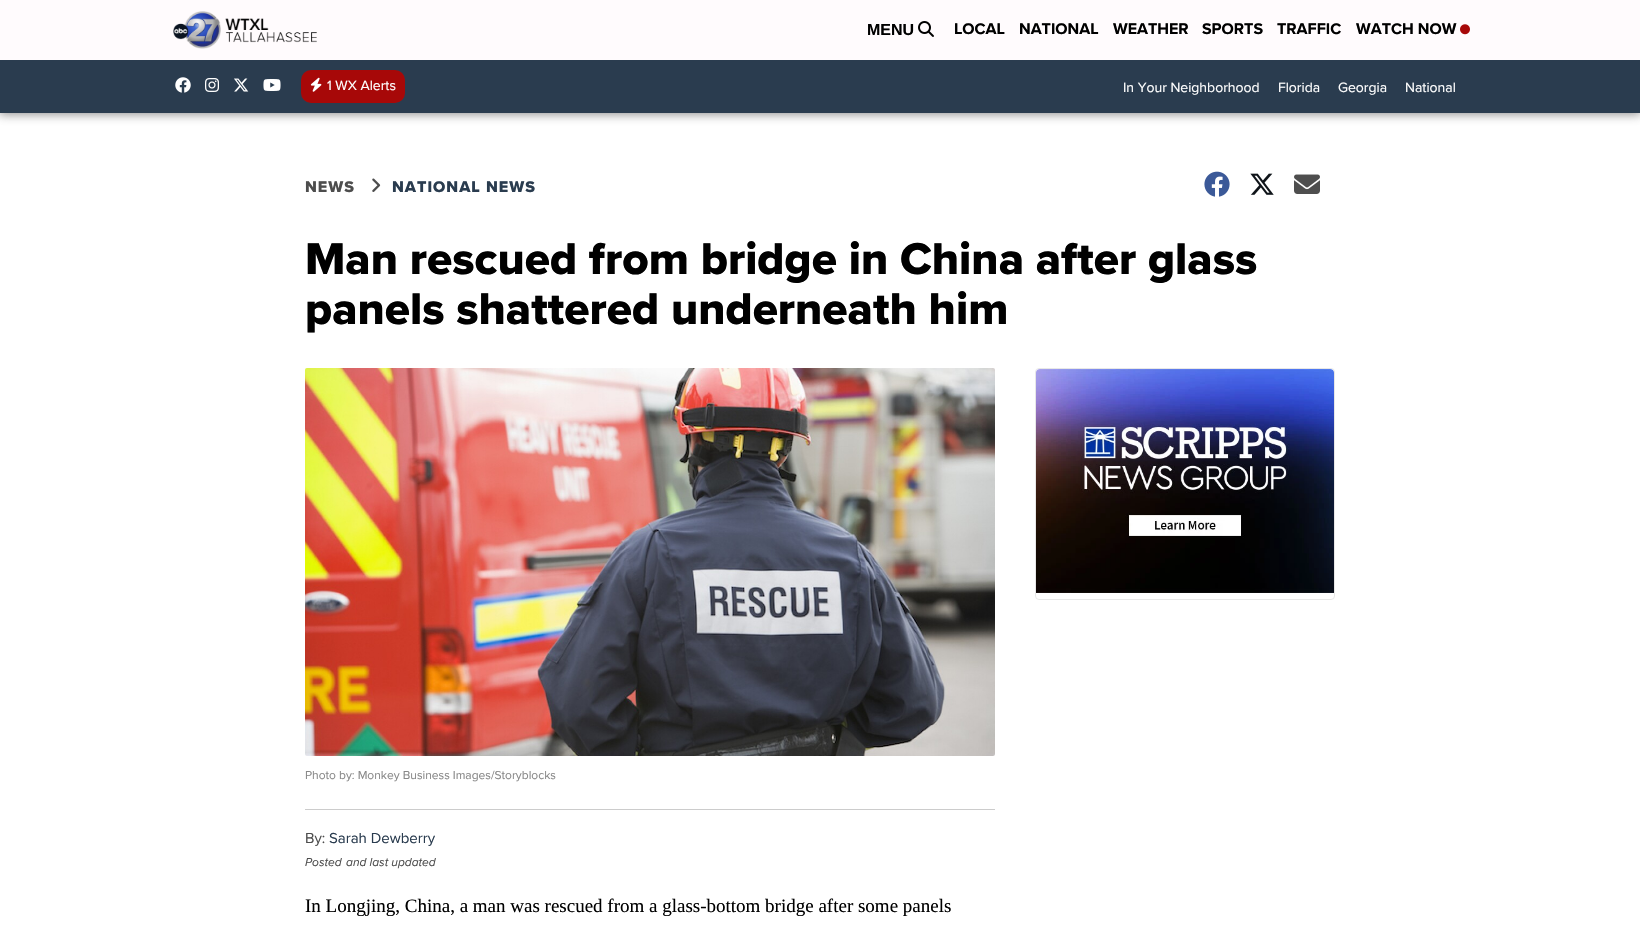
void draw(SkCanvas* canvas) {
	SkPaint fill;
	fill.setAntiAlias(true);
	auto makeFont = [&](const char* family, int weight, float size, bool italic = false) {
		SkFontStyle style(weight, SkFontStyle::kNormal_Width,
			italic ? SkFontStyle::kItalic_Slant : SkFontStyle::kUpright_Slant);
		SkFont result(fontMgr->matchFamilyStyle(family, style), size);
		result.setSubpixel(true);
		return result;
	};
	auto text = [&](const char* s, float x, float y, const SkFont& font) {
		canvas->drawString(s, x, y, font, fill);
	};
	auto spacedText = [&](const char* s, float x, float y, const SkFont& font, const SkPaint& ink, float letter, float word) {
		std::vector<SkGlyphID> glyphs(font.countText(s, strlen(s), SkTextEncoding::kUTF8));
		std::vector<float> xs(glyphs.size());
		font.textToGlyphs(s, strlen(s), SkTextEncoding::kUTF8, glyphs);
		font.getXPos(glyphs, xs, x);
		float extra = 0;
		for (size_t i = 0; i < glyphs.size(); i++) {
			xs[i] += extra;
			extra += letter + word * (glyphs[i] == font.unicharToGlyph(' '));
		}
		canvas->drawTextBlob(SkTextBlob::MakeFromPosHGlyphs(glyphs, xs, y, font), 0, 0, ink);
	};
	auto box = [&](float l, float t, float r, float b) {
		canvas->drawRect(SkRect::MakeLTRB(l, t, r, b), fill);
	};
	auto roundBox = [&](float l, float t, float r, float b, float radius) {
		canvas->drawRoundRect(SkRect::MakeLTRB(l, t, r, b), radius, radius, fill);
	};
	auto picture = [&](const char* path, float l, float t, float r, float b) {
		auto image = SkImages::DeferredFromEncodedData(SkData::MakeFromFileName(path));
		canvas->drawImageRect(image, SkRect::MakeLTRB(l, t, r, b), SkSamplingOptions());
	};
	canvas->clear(0xFFFFFFFF);
	fill.setColor(0xC2616161);
	fill.setMaskFilter(SkMaskFilter::MakeBlur(kNormal_SkBlurStyle, 5));
	canvas->drawRect(SkRect::MakeLTRB(-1, -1, 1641, 114), fill);
	fill.setMaskFilter(nullptr);
	fill.setColor(0xFFFFFBFD);
	box(0, 0, 1640, 60);
	picture("image0.png", 173, 11, 317, 49);
	picture("image1.png", 918, 21, 934, 37);
	picture("image2.png", 1460, 24, 1470, 35);
	fill.setColor(0xFF2A3C4F);
	box(0, 60, 1640, 113);
	picture("image3.png", 175, 77, 191, 93);
	picture("image4.png", 205, 78, 219, 92);
	picture("image5.png", 234, 78, 249, 92);
	picture("image6.png", 263, 79, 281, 91);
	fill.setColor(0xFFA70808);
	roundBox(301, 70, 405, 103, 10);
	picture("image7.png", 310, 77, 322, 92);
	picture("image8.png", 372, 178, 381, 192);
	picture("image9.png", 1204, 171, 1230, 197);
	picture("image10.png", 1250, 173, 1274, 195);
	picture("image11.png", 1294, 174, 1320, 194);
	fill.setStyle(SkPaint::kStroke_Style);
	fill.setStrokeWidth(1);
	fill.setColor(0xFFE7E7E7);
	canvas->drawRoundRect(SkRect::MakeLTRB(1035.5f, 368.5f, 1334.5f, 599.5f), 3.5f, 3.5f, fill);
	picture("image12.png", 1036, 369, 1334, 593);
	fill.setStyle(SkPaint::kFill_Style);
	fill.setColor(0xFFCCCCCC);
	box(305, 809, 995, 810);
	picture("image13.png", 305, 368, 995, 756);
	auto font1 = makeFont("Liberation Sans", 700, 16);
	fill.setColor(0xFF000000);
	text("MENU", 867, 35, font1);
	auto font2 = makeFont("Proxima Nova", 700, 16);
	text("LOCAL", 954, 34, font2);
	text("NATIONAL", 1019, 34, font2);
	text("WEATHER", 1113, 34, font2);
	text("SPORTS", 1202, 34, font2);
	text("TRAFFIC", 1277, 34, font2);
	text("WATCH NOW", 1356, 34, font2);
	auto font3 = makeFont("Proxima Nova", 400, 14);
	fill.setColor(0xFFFFFFFF);
	text("1 WX Alerts", 327, 90, font3);
	text("In Your Neighborhood", 1123, 92, font3);
	text("Florida", 1278, 92, font3);
	text("Georgia", 1338, 92, font3);
	text("National", 1405, 92, font3);
	auto font4 = makeFont("Proxima Nova", 800, 16);
	fill.setColor(0xFF4D4D4D);
	spacedText("NEWS", 305, 192, font4, fill, 1, 0);
	fill.setColor(0xFF2A3C4F);
	spacedText("NATIONAL NEWS", 392, 192, font4, fill, 1, 0);
	auto font5 = makeFont("Proxima Nova", 800, 46);
	fill.setColor(0xFF000000);
	text("Man rescued from bridge in China after glass", 305, 274, font5);
	text("panels shattered underneath him", 305, 324, font5);
	auto font6 = makeFont("Proxima Nova", 400, 12);
	fill.setColor(0xFF888888);
	text("Photo by: Monkey Business Images/Storyblocks", 305, 779, font6);
	auto font7 = makeFont("Proxima Nova", 400, 15);
	fill.setColor(0xFF4D4D4D);
	text("By:", 305, 843, font7);
	fill.setColor(0xFF2A3C4F);
	text("Sarah Dewberry", 329, 843, font7);
	auto font8 = makeFont("Proxima Nova", 400, 12, true);
	fill.setColor(0xFF4D4D4D);
	text("Posted", 305, 866, font8);
	text("and last updated", 346, 866, font8);
	auto font9 = makeFont("Liberation Serif", 400, 19);
	fill.setColor(0xFF000000);
	text("In Longjing, China, a man was rescued from a glass-bottom bridge after some panels", 305, 912, font9);
}
